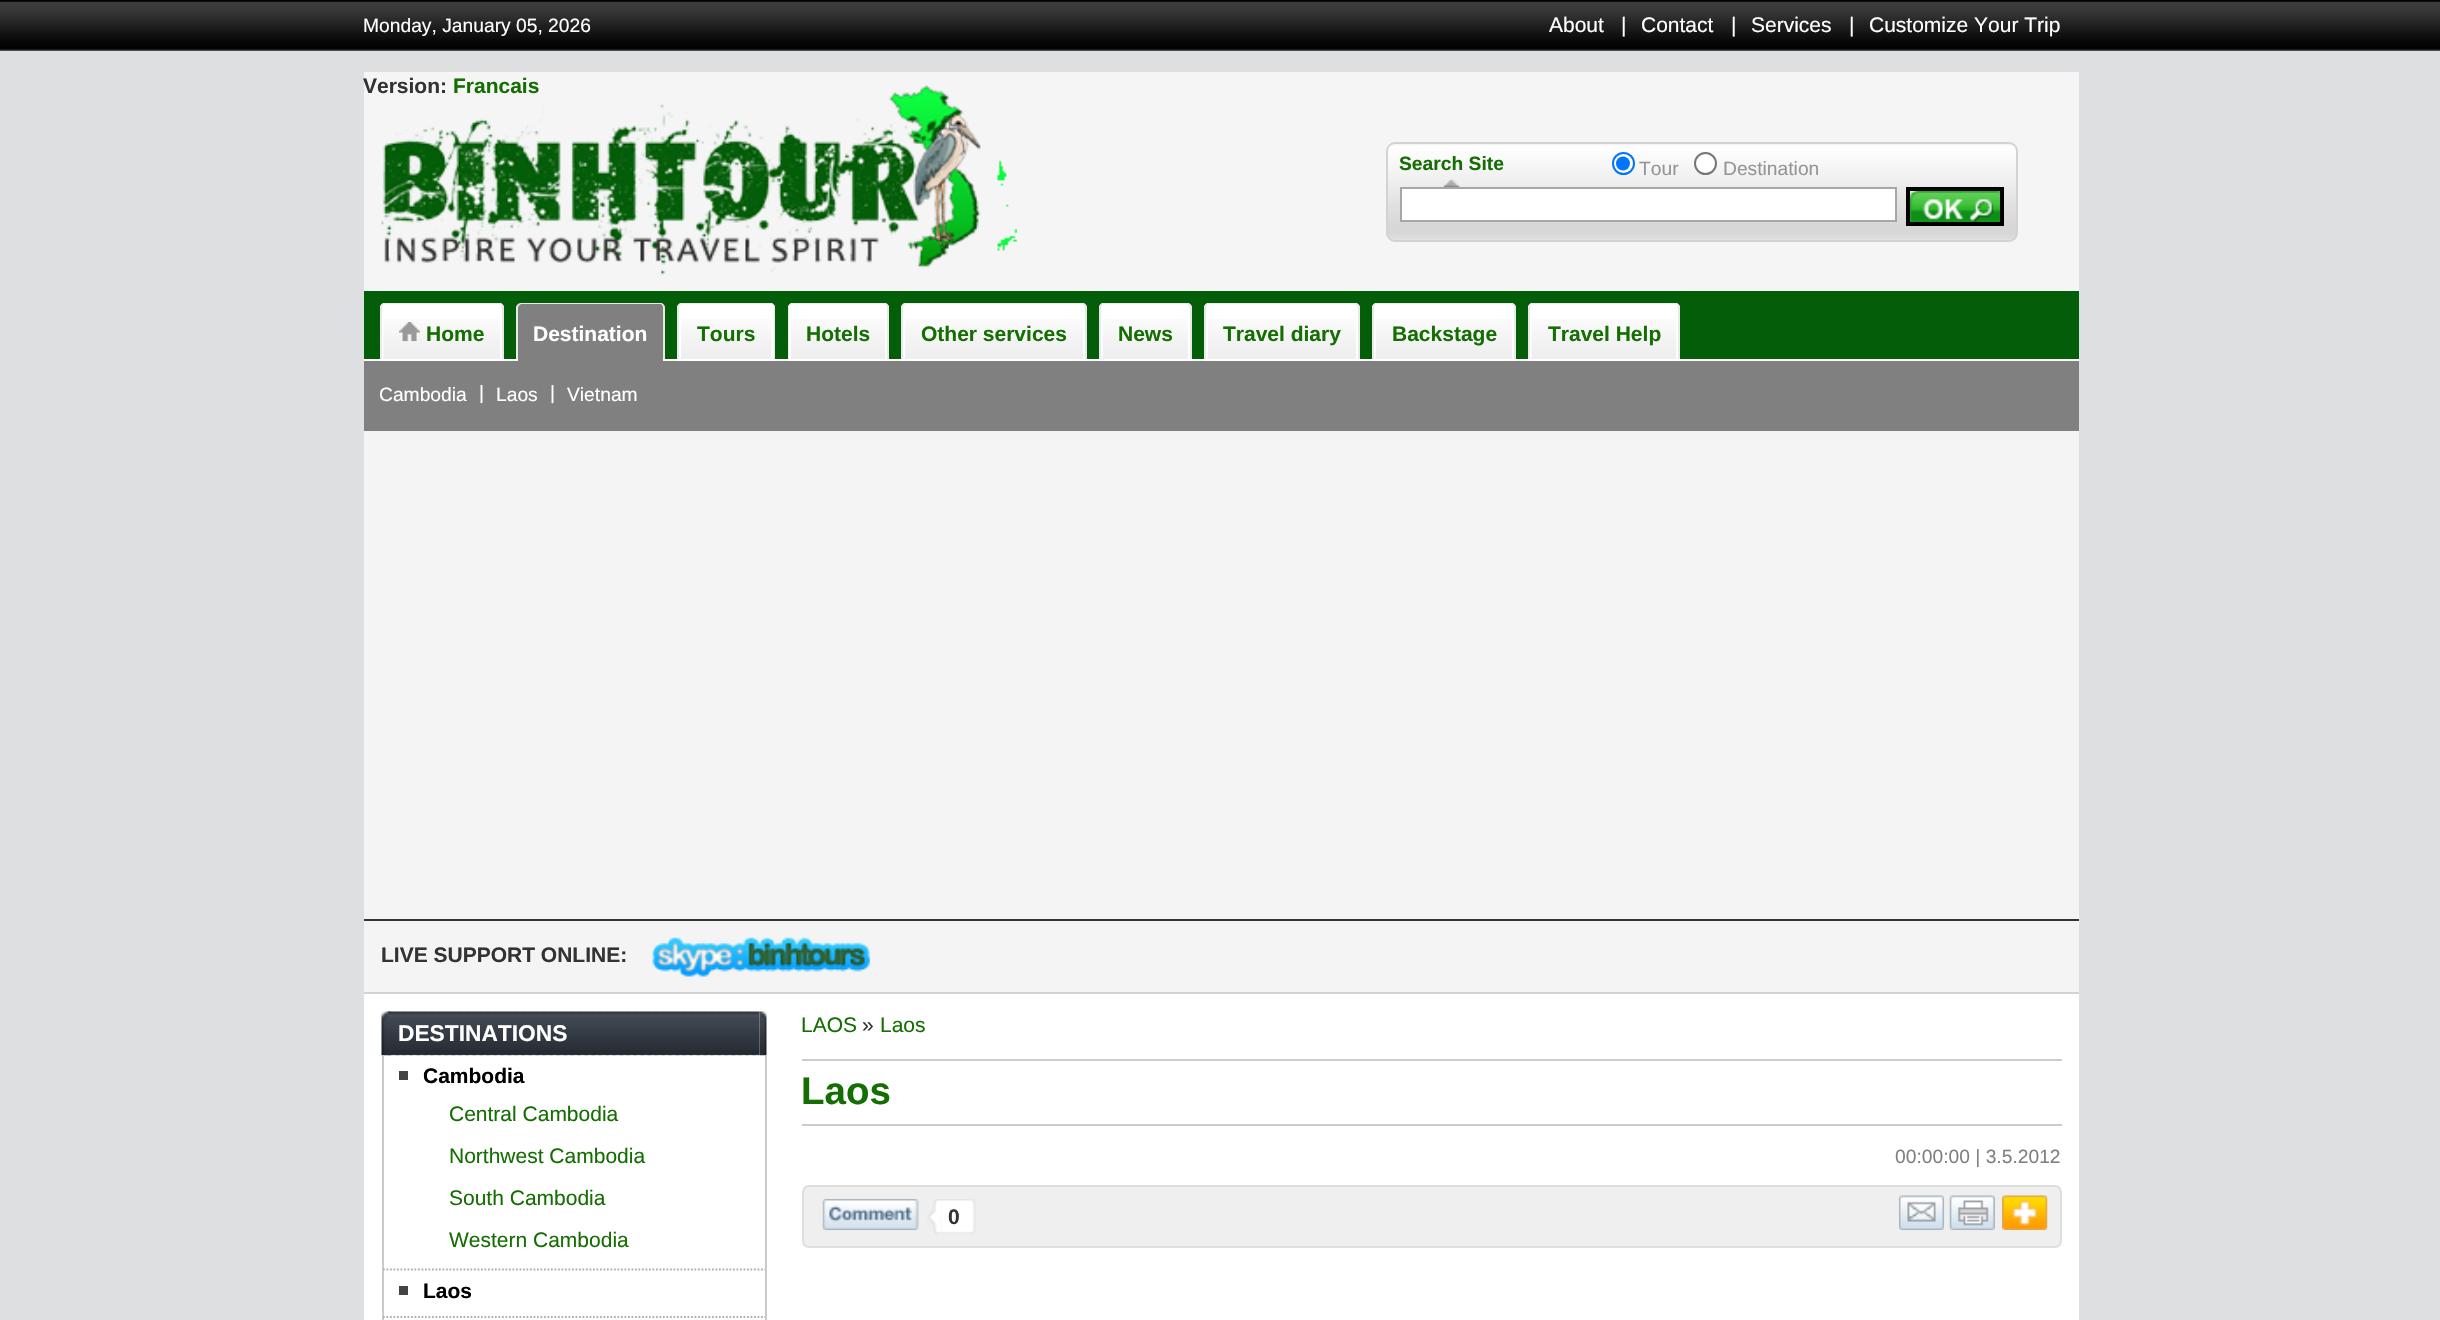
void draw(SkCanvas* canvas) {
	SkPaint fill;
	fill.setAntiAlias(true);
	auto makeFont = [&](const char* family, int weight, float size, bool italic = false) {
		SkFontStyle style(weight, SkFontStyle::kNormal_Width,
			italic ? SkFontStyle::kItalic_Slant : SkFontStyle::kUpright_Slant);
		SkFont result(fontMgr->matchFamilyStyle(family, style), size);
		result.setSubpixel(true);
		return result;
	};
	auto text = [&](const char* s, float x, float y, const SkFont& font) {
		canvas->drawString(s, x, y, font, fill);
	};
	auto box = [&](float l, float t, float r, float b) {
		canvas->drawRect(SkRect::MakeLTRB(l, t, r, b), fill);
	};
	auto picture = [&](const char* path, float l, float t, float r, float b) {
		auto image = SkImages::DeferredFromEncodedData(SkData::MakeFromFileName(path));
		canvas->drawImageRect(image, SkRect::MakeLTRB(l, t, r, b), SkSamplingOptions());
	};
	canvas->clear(0xFFDDDFE0);
	picture("image0.png", 0, 0, 2440, 51);
	fill.setColor(0xFFF5F5F6);
	box(364, 72, 2079, 291);
	picture("image2.png", 1386, 145, 2018, 240);
	fill.setStyle(SkPaint::kStroke_Style);
	fill.setStrokeWidth(2);
	fill.setColor(0xFFD3D3D3);
	canvas->drawRoundRect(SkRect::MakeLTRB(1387, 143, 2017, 241), 8, 8, fill);
	picture("image3.png", 1443, 179, 1460, 187);
	fill.setStyle(SkPaint::kFill_Style);
	fill.setColor(0xFFFFFFFF);
	canvas->drawCircle(1623.5f, 163.5f, 10.5f, fill);
	fill.setStyle(SkPaint::kStroke_Style);
	fill.setColor(0xFF0075FF);
	canvas->drawCircle(1623.5f, 163.5f, 10.5f, fill);
	fill.setStyle(SkPaint::kFill_Style);
	canvas->drawCircle(1623, 163.5f, 7, fill);
	fill.setColor(0xFFFFFFFF);
	canvas->drawCircle(1705.5f, 163.5f, 10.5f, fill);
	fill.setStyle(SkPaint::kStroke_Style);
	fill.setColor(0xFF767676);
	canvas->drawCircle(1705.5f, 163.5f, 10.5f, fill);
	fill.setStyle(SkPaint::kFill_Style);
	fill.setColor(0xFFFFFFFF);
	canvas->drawRect(SkRect::MakeLTRB(1401, 188, 1896, 221), fill);
	fill.setStyle(SkPaint::kStroke_Style);
	fill.setColor(0xFFA7A7A7);
	canvas->drawRect(SkRect::MakeLTRB(1401, 188, 1896, 221), fill);
	picture("image4.png", 1910, 191, 2000, 222);
	fill.setStrokeWidth(4);
	fill.setColor(0xFF000000);
	canvas->drawRect(SkRect::MakeLTRB(1908, 189, 2002, 224), fill);
	fill.setStyle(SkPaint::kFill_Style);
	fill.setColor(0xFF045D09);
	box(364, 291, 2079, 359);
	fill.setColor(0xFF808080);
	canvas->drawPath(SkPathBuilder().moveTo(521, 303).lineTo(660, 303).cubicTo(663, 303, 665, 305, 665, 308).lineTo(665, 368).lineTo(516, 368).lineTo(516, 308).cubicTo(516, 305, 518, 303, 521, 303).close().detach(), fill);
	fill.setColor(0xFFE9E9E9);
	canvas->drawPath(SkPathBuilder(SkPathFillType::kEvenOdd).moveTo(522, 303).lineTo(660, 303).cubicTo(663, 303, 665, 305, 665, 308).lineTo(665, 368).lineTo(516, 368).lineTo(516, 308).cubicTo(516, 305, 519, 303, 522, 303).close().moveTo(522, 304).lineTo(660, 304).cubicTo(662, 304, 663, 306, 663, 308).lineTo(663, 368).lineTo(518, 368).lineTo(518, 308).cubicTo(518, 306, 520, 304, 522, 304).close().detach(), fill);
	fill.setColor(0xFFFFFFFF);
	canvas->drawPath(SkPathBuilder().moveTo(793, 303).lineTo(884, 303).cubicTo(887, 303, 889, 305, 889, 308).lineTo(889, 364).lineTo(788, 364).lineTo(788, 308).cubicTo(788, 305, 790, 303, 793, 303).close().detach(), fill);
	fill.setColor(0xFFE9E9E9);
	canvas->drawPath(SkPathBuilder(SkPathFillType::kEvenOdd).moveTo(793, 303).lineTo(884, 303).cubicTo(887, 303, 889, 305, 889, 308).lineTo(889, 364).lineTo(788, 364).lineTo(788, 308).cubicTo(788, 305, 790, 303, 793, 303).close().moveTo(793, 304).lineTo(884, 304).cubicTo(886, 304, 887, 306, 887, 308).lineTo(887, 364).lineTo(789, 364).lineTo(789, 308).cubicTo(789, 306, 791, 304, 793, 304).close().detach(), fill);
	fill.setColor(0xFFFFFFFF);
	canvas->drawPath(SkPathBuilder().moveTo(906, 303).lineTo(1082, 303).cubicTo(1085, 303, 1087, 305, 1087, 308).lineTo(1087, 364).lineTo(901, 364).lineTo(901, 308).cubicTo(901, 305, 903, 303, 906, 303).close().detach(), fill);
	fill.setColor(0xFFE9E9E9);
	canvas->drawPath(SkPathBuilder(SkPathFillType::kEvenOdd).moveTo(906, 303).lineTo(1082, 303).cubicTo(1084, 303, 1087, 305, 1087, 308).lineTo(1087, 364).lineTo(901, 364).lineTo(901, 308).cubicTo(901, 305, 904, 303, 906, 303).close().moveTo(906, 304).lineTo(1082, 304).cubicTo(1083, 304, 1085, 306, 1085, 308).lineTo(1085, 364).lineTo(903, 364).lineTo(903, 308).cubicTo(903, 306, 905, 304, 906, 304).close().detach(), fill);
	fill.setColor(0xFFFFFFFF);
	canvas->drawPath(SkPathBuilder().moveTo(1209, 303).lineTo(1355, 303).cubicTo(1358, 303, 1360, 305, 1360, 308).lineTo(1360, 364).lineTo(1204, 364).lineTo(1204, 308).cubicTo(1204, 305, 1206, 303, 1209, 303).close().detach(), fill);
	fill.setColor(0xFFE9E9E9);
	canvas->drawPath(SkPathBuilder(SkPathFillType::kEvenOdd).moveTo(1209, 303).lineTo(1354, 303).cubicTo(1357, 303, 1360, 305, 1360, 308).lineTo(1360, 364).lineTo(1204, 364).lineTo(1204, 308).cubicTo(1204, 305, 1206, 303, 1209, 303).close().moveTo(1209, 304).lineTo(1354, 304).cubicTo(1356, 304, 1358, 306, 1358, 308).lineTo(1358, 364).lineTo(1206, 364).lineTo(1206, 308).cubicTo(1206, 306, 1207, 304, 1209, 304).close().detach(), fill);
	fill.setColor(0xFFFFFFFF);
	canvas->drawPath(SkPathBuilder().moveTo(1377, 303).lineTo(1511, 303).cubicTo(1514, 303, 1516, 305, 1516, 308).lineTo(1516, 364).lineTo(1372, 364).lineTo(1372, 308).cubicTo(1372, 305, 1374, 303, 1377, 303).close().detach(), fill);
	fill.setColor(0xFFE9E9E9);
	canvas->drawPath(SkPathBuilder(SkPathFillType::kEvenOdd).moveTo(1377, 303).lineTo(1510, 303).cubicTo(1513, 303, 1516, 305, 1516, 308).lineTo(1516, 364).lineTo(1372, 364).lineTo(1372, 308).cubicTo(1372, 305, 1374, 303, 1377, 303).close().moveTo(1377, 304).lineTo(1510, 304).cubicTo(1512, 304, 1514, 306, 1514, 308).lineTo(1514, 364).lineTo(1374, 364).lineTo(1374, 308).cubicTo(1374, 306, 1375, 304, 1377, 304).close().detach(), fill);
	fill.setColor(0xFFFFFFFF);
	canvas->drawPath(SkPathBuilder().moveTo(1533, 303).lineTo(1675, 303).cubicTo(1678, 303, 1680, 305, 1680, 308).lineTo(1680, 364).lineTo(1528, 364).lineTo(1528, 308).cubicTo(1528, 305, 1530, 303, 1533, 303).close().detach(), fill);
	fill.setColor(0xFFE9E9E9);
	canvas->drawPath(SkPathBuilder(SkPathFillType::kEvenOdd).moveTo(1533, 303).lineTo(1675, 303).cubicTo(1678, 303, 1680, 305, 1680, 308).lineTo(1680, 364).lineTo(1528, 364).lineTo(1528, 308).cubicTo(1528, 305, 1530, 303, 1533, 303).close().moveTo(1533, 304).lineTo(1675, 304).cubicTo(1677, 304, 1678, 306, 1678, 308).lineTo(1678, 364).lineTo(1530, 364).lineTo(1530, 308).cubicTo(1530, 306, 1531, 304, 1533, 304).close().detach(), fill);
	fill.setColor(0xFFFFFFFF);
	canvas->drawPath(SkPathBuilder().moveTo(385, 303).lineTo(499, 303).cubicTo(502, 303, 504, 305, 504, 308).lineTo(504, 364).lineTo(380, 364).lineTo(380, 308).cubicTo(380, 305, 382, 303, 385, 303).close().detach(), fill);
	fill.setColor(0xFFE9E9E9);
	canvas->drawPath(SkPathBuilder(SkPathFillType::kEvenOdd).moveTo(385, 303).lineTo(499, 303).cubicTo(502, 303, 504, 305, 504, 308).lineTo(504, 364).lineTo(380, 364).lineTo(380, 308).cubicTo(380, 305, 382, 303, 385, 303).close().moveTo(385, 304).lineTo(499, 304).cubicTo(501, 304, 502, 306, 502, 308).lineTo(502, 364).lineTo(382, 364).lineTo(382, 308).cubicTo(382, 306, 383, 304, 385, 304).close().detach(), fill);
	fill.setColor(0xFFFFFFFF);
	canvas->drawPath(SkPathBuilder().moveTo(682, 303).lineTo(770, 303).cubicTo(773, 303, 775, 305, 775, 308).lineTo(775, 364).lineTo(677, 364).lineTo(677, 308).cubicTo(677, 305, 679, 303, 682, 303).close().detach(), fill);
	fill.setColor(0xFFE9E9E9);
	canvas->drawPath(SkPathBuilder(SkPathFillType::kEvenOdd).moveTo(682, 303).lineTo(770, 303).cubicTo(773, 303, 775, 305, 775, 308).lineTo(775, 364).lineTo(677, 364).lineTo(677, 308).cubicTo(677, 305, 680, 303, 682, 303).close().moveTo(682, 304).lineTo(770, 304).cubicTo(772, 304, 774, 306, 774, 308).lineTo(774, 364).lineTo(679, 364).lineTo(679, 308).cubicTo(679, 306, 681, 304, 682, 304).close().detach(), fill);
	fill.setColor(0xFFFFFFFF);
	canvas->drawPath(SkPathBuilder().moveTo(1104, 303).lineTo(1187, 303).cubicTo(1190, 303, 1192, 305, 1192, 308).lineTo(1192, 364).lineTo(1099, 364).lineTo(1099, 308).cubicTo(1099, 305, 1101, 303, 1104, 303).close().detach(), fill);
	fill.setColor(0xFFE9E9E9);
	canvas->drawPath(SkPathBuilder(SkPathFillType::kEvenOdd).moveTo(1104, 303).lineTo(1186, 303).cubicTo(1189, 303, 1192, 305, 1192, 308).lineTo(1192, 364).lineTo(1099, 364).lineTo(1099, 308).cubicTo(1099, 305, 1101, 303, 1104, 303).close().moveTo(1104, 304).lineTo(1186, 304).cubicTo(1188, 304, 1190, 306, 1190, 308).lineTo(1190, 364).lineTo(1101, 364).lineTo(1101, 308).cubicTo(1101, 306, 1102, 304, 1104, 304).close().detach(), fill);
	fill.setColor(0xFF808080);
	box(364, 361, 2079, 431);
	fill.setColor(0xFFFFFFFF);
	box(364, 359, 2079, 361);
	fill.setColor(0xFF808080);
	canvas->drawPath(SkPathBuilder().moveTo(523, 305).lineTo(658, 305).cubicTo(661, 305, 663, 307, 663, 310).lineTo(663, 368).lineTo(518, 368).lineTo(518, 310).cubicTo(518, 307, 520, 305, 523, 305).close().detach(), fill);
	picture("image5.png", 791, 319, 886, 359);
	picture("image6.png", 905, 319, 1083, 359);
	picture("image7.png", 1207, 319, 1356, 359);
	picture("image8.png", 1375, 319, 1512, 359);
	picture("image9.png", 1531, 319, 1677, 359);
	picture("image10.png", 383, 319, 501, 359);
	picture("image11.png", 399, 322, 420, 342);
	picture("image12.png", 681, 319, 772, 359);
	picture("image13.png", 1102, 319, 1188, 359);
	fill.setColor(0xFFF4F4F4);
	box(364, 431, 2079, 992);
	fill.setColor(0xFF333333);
	box(364, 919, 2079, 921);
	fill.setColor(0xFFD3D3D3);
	box(364, 992, 2079, 994);
	picture("image14.png", 652, 937, 870, 977);
	fill.setColor(0xFFFFFFFF);
	box(364, 994, 2079, 1320);
	picture("image15.png", 381, 1011, 391, 1056);
	picture("image16.png", 759, 1011, 767, 1056);
	picture("image17.png", 388, 1011, 760, 1056);
	fill.setColor(0xFFCACACA);
	box(765, 1055, 767, 1320);
	box(382, 1055, 384, 1320);
	fill.setStyle(SkPaint::kStroke_Style);
	fill.setStrokeWidth(1.8f);
	fill.setColor(0xFFAEAEAE);
	fill.setPathEffect(SkDashPathEffect::Make({{1.75f, 1.75f}}, 0));
	canvas->drawPath(SkPathBuilder().moveTo(383, 1269.5f).lineTo(765, 1269.5f).detach(), fill);
	fill.setPathEffect(nullptr);
	fill.setStyle(SkPaint::kFill_Style);
	fill.setColor(0xFF444444);
	box(399, 1071, 408, 1080);
	fill.setStyle(SkPaint::kStroke_Style);
	fill.setColor(0xFFAEAEAE);
	fill.setPathEffect(SkDashPathEffect::Make({{1.75f, 1.75f}}, 0));
	canvas->drawPath(SkPathBuilder().moveTo(383, 1317).lineTo(765, 1317).detach(), fill);
	fill.setPathEffect(nullptr);
	fill.setStyle(SkPaint::kFill_Style);
	fill.setColor(0xFF444444);
	box(399, 1286, 408, 1295);
	fill.setColor(0xFFCCCCCC);
	box(802, 1059, 2062, 1061);
	box(802, 1124, 2062, 1126);
	fill.setColor(0xFFEFEFEF);
	canvas->drawRoundRect(SkRect::MakeLTRB(803, 1186, 2061, 1247), 6, 6, fill);
	fill.setStyle(SkPaint::kStroke_Style);
	fill.setStrokeWidth(2);
	fill.setColor(0xFFDEDEDE);
	canvas->drawRoundRect(SkRect::MakeLTRB(803, 1186, 2061, 1247), 6, 6, fill);
	picture("image18.png", 822, 1198, 919, 1231);
	picture("image19.png", 927, 1199, 942, 1234);
	picture("image20.png", 941, 1199, 976, 1234);
	picture("image21.png", 1898, 1195, 1945, 1231);
	picture("image22.png", 1949, 1195, 1995, 1231);
	picture("image23.png", 2002, 1195, 2048, 1231);
	auto font1 = makeFont("Liberation Sans", 400, 19.25f);
	fill.setStyle(SkPaint::kFill_Style);
	fill.setColor(0xFFFFFFFF);
	text("Monday, January 05, 2026", 363, 32, font1);
	auto font2 = makeFont("Liberation Sans", 400, 21);
	text("About", 1549, 32, font2);
	text("|", 1621, 32, font2);
	text("Contact", 1641, 32, font2);
	text("|", 1731, 32, font2);
	text("Services", 1751, 32, font2);
	text("|", 1849, 32, font2);
	text("Customize Your Trip", 1869, 32, font2);
	auto font3 = makeFont("Liberation Sans", 700, 21);
	fill.setColor(0xFF333333);
	text("Version:", 363, 93, font3);
	fill.setColor(0xFF146E02);
	text("Francais", 453, 93, font3);
	picture("image1.png", 381, 85, 1017, 276);
	auto font4 = makeFont("Liberation Sans", 700, 19.25f);
	text("Search Site", 1399, 170, font4);
	fill.setColor(0xFF959595);
	text("Tour", 1639, 175, font1);
	text("Destination", 1723, 175, font1);
	fill.setColor(0xFFFFFFFF);
	text("Destination", 533, 341, font3);
	text("Cambodia", 379, 401, font1);
	text("|", 479, 399, font1);
	text("Laos", 496, 401, font1);
	text("|", 550, 399, font1);
	text("Vietnam", 567, 401, font1);
	fill.setColor(0xFF146E02);
	text("Hotels", 806, 341, font3);
	text("Other services", 921, 341, font3);
	text("Travel diary", 1223, 341, font3);
	text("Backstage", 1392, 341, font3);
	text("Travel Help", 1548, 341, font3);
	text("Home", 426, 341, font3);
	text("Tours", 697, 341, font3);
	text("News", 1118, 341, font3);
	fill.setColor(0xFF333333);
	text("LIVE SUPPORT ONLINE:", 381, 962, font3);
	auto font5 = makeFont("Liberation Sans", 700, 22.75f);
	fill.setColor(0xFFFFFFFF);
	text("DESTINATIONS", 398, 1041, font5);
	fill.setColor(0xFF000000);
	text("Cambodia", 423, 1083, font3);
	fill.setColor(0xFF146E02);
	text("Central Cambodia", 449, 1121, font2);
	text("Northwest Cambodia", 449, 1163, font2);
	text("South Cambodia", 449, 1205, font2);
	text("Western Cambodia", 449, 1247, font2);
	fill.setColor(0xFF000000);
	text("Laos", 423, 1298, font3);
	fill.setColor(0xFF146E02);
	text("LAOS", 801, 1032, font2);
	fill.setColor(0xFF333333);
	text("»", 862, 1032, font2);
	fill.setColor(0xFF146E02);
	text("Laos", 880, 1032, font2);
	auto font6 = makeFont("Liberation Sans", 700, 38.5f);
	text("Laos", 801, 1104, font6);
	fill.setColor(0xFF808080);
	text("00:00:00 | 3.5.2012", 1895, 1163, font1);
	fill.setColor(0xFF333333);
	text("0", 948, 1224, font3);
}
